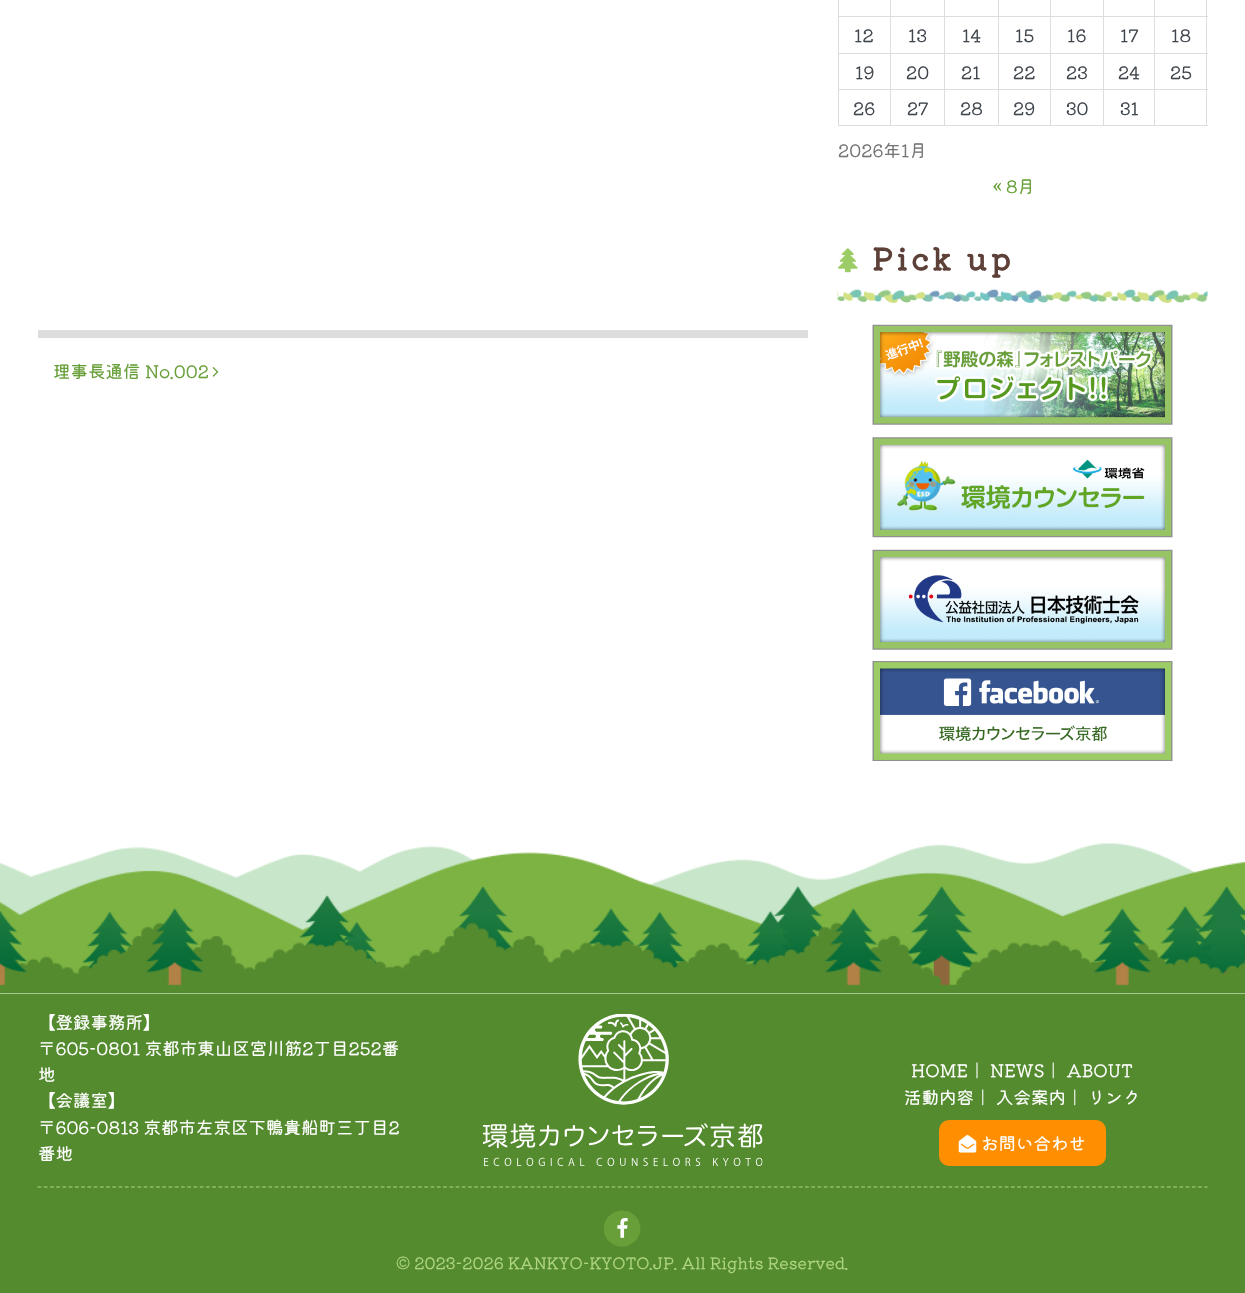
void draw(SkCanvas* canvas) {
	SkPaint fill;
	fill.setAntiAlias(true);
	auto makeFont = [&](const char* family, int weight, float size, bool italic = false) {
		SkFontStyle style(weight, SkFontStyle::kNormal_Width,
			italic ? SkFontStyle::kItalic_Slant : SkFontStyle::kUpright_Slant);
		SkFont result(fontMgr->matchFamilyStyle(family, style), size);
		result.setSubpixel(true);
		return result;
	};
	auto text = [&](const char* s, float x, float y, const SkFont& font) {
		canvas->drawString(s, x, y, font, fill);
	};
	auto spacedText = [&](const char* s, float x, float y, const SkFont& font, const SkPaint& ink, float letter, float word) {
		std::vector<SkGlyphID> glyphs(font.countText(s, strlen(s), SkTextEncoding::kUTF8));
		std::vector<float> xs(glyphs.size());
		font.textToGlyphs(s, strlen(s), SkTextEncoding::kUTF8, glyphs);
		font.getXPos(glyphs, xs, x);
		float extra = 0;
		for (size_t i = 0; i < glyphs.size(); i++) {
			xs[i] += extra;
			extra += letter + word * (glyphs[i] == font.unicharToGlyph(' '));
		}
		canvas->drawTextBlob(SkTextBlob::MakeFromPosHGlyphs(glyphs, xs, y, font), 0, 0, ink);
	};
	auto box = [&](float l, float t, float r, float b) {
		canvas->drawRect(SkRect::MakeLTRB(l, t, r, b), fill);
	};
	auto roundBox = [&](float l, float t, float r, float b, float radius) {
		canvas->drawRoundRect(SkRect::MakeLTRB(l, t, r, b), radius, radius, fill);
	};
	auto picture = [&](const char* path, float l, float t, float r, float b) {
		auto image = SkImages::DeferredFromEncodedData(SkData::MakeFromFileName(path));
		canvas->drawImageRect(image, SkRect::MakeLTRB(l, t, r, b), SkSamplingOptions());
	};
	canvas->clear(0xFFFFFFFF);
	fill.setColor(0xFFDDDDDD);
	box(1154, 16, 1208, 17);
	box(1154, 53, 1208, 54);
	box(1154, 89, 1208, 90);
	box(1206, 89, 1207, 126);
	box(1154, 125, 1208, 126);
	box(1154, 89, 1155, 126);
	box(1103, 89, 1155, 90);
	box(1154, 53, 1155, 90);
	box(1103, 53, 1155, 54);
	box(1154, 16, 1155, 54);
	box(1103, 16, 1155, 17);
	box(1103, 125, 1155, 126);
	box(1103, 89, 1104, 126);
	box(1050, 89, 1104, 90);
	box(1103, 53, 1104, 90);
	box(1050, 53, 1104, 54);
	box(1103, 16, 1104, 54);
	box(1050, 16, 1104, 17);
	box(1050, 125, 1104, 126);
	box(1050, 89, 1051, 126);
	box(998, 89, 1051, 90);
	box(1050, 53, 1051, 90);
	box(998, 53, 1051, 54);
	box(1050, 16, 1051, 54);
	box(998, 16, 1051, 17);
	box(998, 125, 1051, 126);
	box(998, 89, 999, 126);
	box(944, 89, 999, 90);
	box(998, 53, 999, 90);
	box(944, 53, 999, 54);
	box(998, 16, 999, 54);
	box(944, 16, 999, 17);
	box(944, 125, 999, 126);
	box(944, 89, 945, 126);
	box(890, 89, 945, 90);
	box(944, 53, 945, 90);
	box(890, 53, 945, 54);
	box(944, 16, 945, 54);
	box(890, 16, 945, 17);
	box(890, 125, 945, 126);
	box(890, 89, 891, 126);
	box(838, 89, 891, 90);
	box(890, 53, 891, 90);
	box(838, 53, 891, 54);
	box(890, 16, 891, 54);
	box(838, 16, 891, 17);
	box(890, 0, 891, 18);
	box(944, 0, 945, 18);
	box(998, 0, 999, 18);
	box(1050, 0, 1051, 18);
	box(1103, 0, 1104, 18);
	box(1154, 0, 1155, 18);
	box(838, 125, 891, 126);
	box(838, 89, 839, 126);
	box(838, 53, 839, 90);
	box(838, 0, 839, 54);
	box(1206, 53, 1207, 90);
	box(1206, 0, 1207, 54);
	picture("image0.png", 837, 289, 1208, 303);
	picture("image1.png", 838, 248, 858, 273);
	picture("image2.png", 872, 324, 1173, 425);
	picture("image3.png", 872, 437, 1173, 538);
	picture("image4.png", 872, 549, 1173, 650);
	picture("image5.png", 872, 661, 1173, 761);
	box(38, 330, 808, 338);
	picture("image6.png", 212, 367, 219, 377);
	picture("image7.png", 0, 843, 1245, 994);
	fill.setColor(0xFF558B2F);
	box(0, 994, 1245, 1293);
	picture("image8.png", 483, 1014, 763, 1166);
	fill.setColor(0xFFFF8F00);
	roundBox(939, 1120, 1106, 1166, 10);
	picture("image9.png", 958, 1135, 977, 1153);
	fill.setStyle(SkPaint::kStroke_Style);
	fill.setStrokeWidth(1.2f);
	fill.setColor(0xFFAED581);
	fill.setPathEffect(SkDashPathEffect::Make({{3.75f, 2.49f}}, 0));
	canvas->drawPath(SkPathBuilder().moveTo(37.5f, 1187).lineTo(1207.5f, 1187).detach(), fill);
	fill.setPathEffect(nullptr);
	fill.setStyle(SkPaint::kFill_Style);
	fill.setColor(0xFF689F38);
	canvas->drawPath(SkPathBuilder().moveTo(638, 1219.5f).cubicTo(639.5f, 1222.5f, 640.5f, 1226, 640.5f, 1229.5f).cubicTo(639, 1247.5f, 615, 1253, 606, 1237.5f).cubicTo(604.5f, 1234.5f, 603.5f, 1231, 604, 1227.5f).cubicTo(605, 1209.5f, 629, 1204, 638, 1219.5f).close().detach(), fill);
	picture("image10.png", 617, 1218, 628, 1238);
	auto font1 = makeFont("Kiwi Maru", 400, 17.5f);
	fill.setColor(0xFF40464D);
	text("12", 854, 42, font1);
	text("13", 908, 42, font1);
	text("14", 962, 42, font1);
	text("15", 1015, 42, font1);
	text("16", 1067, 42, font1);
	text("17", 1120, 42, font1);
	text("18", 1171, 42, font1);
	text("19", 855, 79, font1);
	text("20", 906, 79, font1);
	text("21", 961, 79, font1);
	text("22", 1013, 79, font1);
	text("23", 1066, 79, font1);
	text("24", 1118, 79, font1);
	text("25", 1170, 79, font1);
	text("26", 853, 115, font1);
	text("27", 907, 115, font1);
	text("28", 960, 115, font1);
	text("29", 1013, 115, font1);
	text("30", 1066, 115, font1);
	text("31", 1120, 115, font1);
	fill.setColor(0xFF757575);
	text("2026年1月", 838, 157, font1);
	fill.setColor(0xFF689F38);
	text("« 8月", 993, 193, font1);
	auto font2 = makeFont("Kiwi Maru", 700, 29.75f);
	fill.setColor(0xFF5D4037);
	spacedText("Pick up", 872, 270, font2, fill, 4, 0);
	fill.setColor(0xFF689F38);
	text("理事長通信 No.002", 53, 378, font1);
	fill.setColor(0xFFFFFFFF);
	text("【登録事務所】", 38, 1029, font1);
	text("〒605-0801 京都市東山区宮川筋2丁目252番", 38, 1055, font1);
	text("地", 38, 1081, font1);
	text("【会議室】", 38, 1107, font1);
	text("〒606-0813 京都市左京区下鴨貴船町三丁目2", 38, 1134, font1);
	text("番地", 38, 1160, font1);
	text("HOME｜ NEWS｜ ABOUT", 911, 1077, font1);
	text("活動内容｜ 入会案内｜ リンク", 904, 1104, font1);
	text("お問い合わせ", 981, 1150, font1);
	auto font3 = makeFont("Kiwi Maru", 400, 16);
	fill.setColor(0xFFAED581);
	text("© 2023-2026 KANKYO-KYOTO.JP. All Rights Reserved.", 396, 1269, font3);
}
